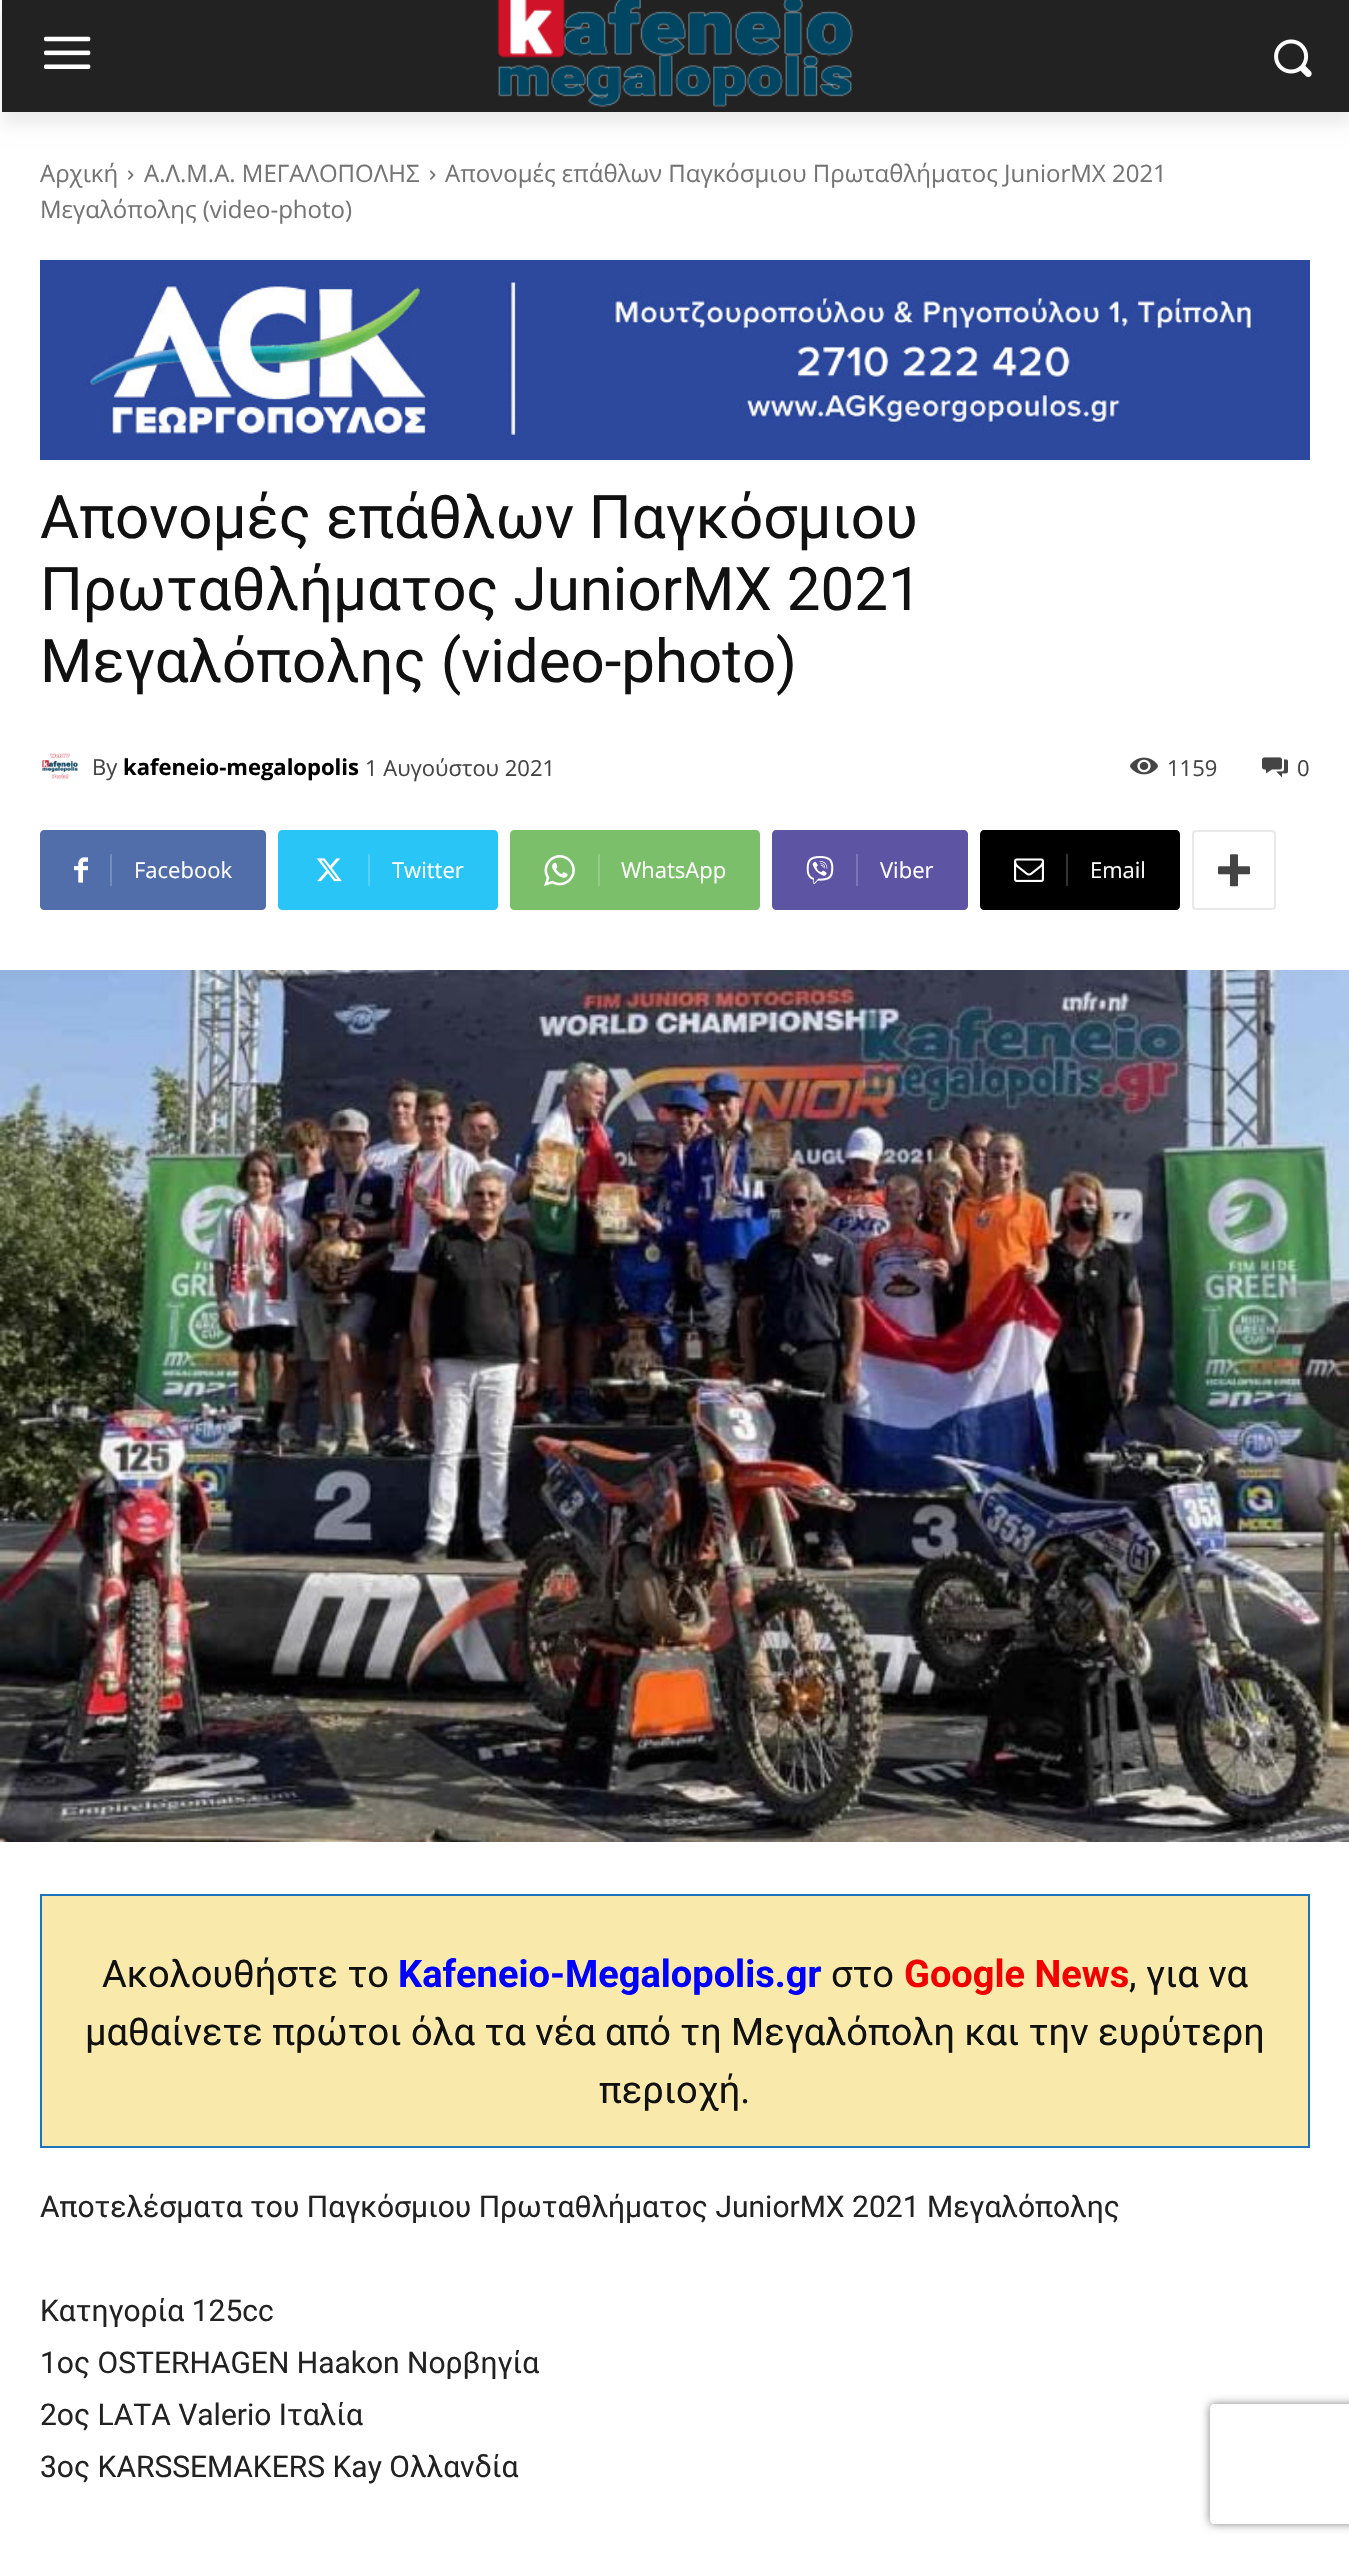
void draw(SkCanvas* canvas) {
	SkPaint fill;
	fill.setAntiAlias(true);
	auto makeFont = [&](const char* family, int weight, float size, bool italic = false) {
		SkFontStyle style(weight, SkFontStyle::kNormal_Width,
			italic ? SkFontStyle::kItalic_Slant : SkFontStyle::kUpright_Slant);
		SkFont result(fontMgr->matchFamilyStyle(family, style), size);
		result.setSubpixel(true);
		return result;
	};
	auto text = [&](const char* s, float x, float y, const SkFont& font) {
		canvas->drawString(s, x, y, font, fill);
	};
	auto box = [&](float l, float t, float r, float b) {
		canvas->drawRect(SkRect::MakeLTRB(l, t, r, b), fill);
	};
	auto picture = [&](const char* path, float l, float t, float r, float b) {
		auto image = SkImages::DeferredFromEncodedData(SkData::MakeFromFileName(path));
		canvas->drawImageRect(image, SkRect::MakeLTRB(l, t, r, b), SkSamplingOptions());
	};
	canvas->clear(0xFFFFFFFF);
	fill.setColor(0xFF222222);
	box(2, 0, 1349, 112);
	picture("image0.png", 44, 36, 91, 69);
	picture("image1.png", 497, 0, 853, 107);
	picture("image2.png", 1274, 39, 1312, 77);
	canvas->save();
	canvas->clipPath(SkPathBuilder(SkPathFillType::kEvenOdd).moveTo(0, 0).lineTo(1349, 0).lineTo(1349, 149).lineTo(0, 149).close().moveTo(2, 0).lineTo(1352, 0).lineTo(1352, 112).lineTo(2, 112).close().detach(), true);
	fill.setColor(0x14000000);
	fill.setMaskFilter(SkMaskFilter::MakeBlur(kNormal_SkBlurStyle, 8));
	canvas->drawRect(SkRect::MakeLTRB(2, 12, 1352, 124), fill);
	fill.setMaskFilter(nullptr);
	canvas->restore();
	picture("image3.png", 128, 170, 134, 180);
	picture("image3.png", 430, 170, 436, 180);
	picture("image4.png", 40, 260, 1310, 460);
	picture("image5.png", 41, 753, 79, 779);
	picture("image6.png", 1130, 757, 1158, 775);
	picture("image7.png", 1262, 757, 1288, 778);
	fill.setColor(0xFF516EAB);
	canvas->drawPath(SkPathBuilder().moveTo(110, 830).lineTo(262, 830).cubicTo(264, 830, 266, 832, 266, 834).lineTo(266, 906).cubicTo(266, 908, 264, 910, 262, 910).lineTo(110, 910).close().detach(), fill);
	canvas->drawPath(SkPathBuilder().moveTo(44, 830).lineTo(122, 830).lineTo(122, 910).lineTo(44, 910).cubicTo(42, 910, 40, 908, 40, 906).lineTo(40, 834).cubicTo(40, 832, 42, 830, 44, 830).close().detach(), fill);
	picture("image8.png", 74, 857, 88, 883);
	fill.setColor(0xFF748BBC);
	box(110, 854, 112, 886);
	fill.setColor(0xFF29C5F6);
	canvas->drawPath(SkPathBuilder().moveTo(368, 830).lineTo(494, 830).cubicTo(496, 830, 498, 832, 498, 834).lineTo(498, 906).cubicTo(498, 908, 496, 910, 494, 910).lineTo(368, 910).close().detach(), fill);
	canvas->drawPath(SkPathBuilder().moveTo(282, 830).lineTo(380, 830).lineTo(380, 910).lineTo(282, 910).cubicTo(280, 910, 278, 908, 278, 906).lineTo(278, 834).cubicTo(278, 832, 280, 830, 282, 830).close().detach(), fill);
	picture("image9.png", 316, 858, 342, 882);
	fill.setColor(0xFF54D1F8);
	box(368, 854, 370, 886);
	fill.setColor(0xFF7BBF6A);
	canvas->drawPath(SkPathBuilder().moveTo(598, 830).lineTo(756, 830).cubicTo(758, 830, 760, 832, 760, 834).lineTo(760, 906).cubicTo(760, 908, 758, 910, 756, 910).lineTo(598, 910).close().detach(), fill);
	canvas->drawPath(SkPathBuilder().moveTo(514, 830).lineTo(610, 830).lineTo(610, 910).lineTo(514, 910).cubicTo(512, 910, 510, 908, 510, 906).lineTo(510, 834).cubicTo(510, 832, 512, 830, 514, 830).close().detach(), fill);
	picture("image10.png", 544, 855, 575, 886);
	fill.setColor(0xFF95CC88);
	box(598, 854, 600, 886);
	fill.setColor(0xFF5D54A4);
	canvas->drawPath(SkPathBuilder().moveTo(856, 830).lineTo(964, 830).cubicTo(966, 830, 968, 832, 968, 834).lineTo(968, 906).cubicTo(968, 908, 966, 910, 964, 910).lineTo(856, 910).close().detach(), fill);
	canvas->drawPath(SkPathBuilder().moveTo(776, 830).lineTo(868, 830).lineTo(868, 910).lineTo(776, 910).cubicTo(774, 910, 772, 908, 772, 906).lineTo(772, 834).cubicTo(772, 832, 774, 830, 776, 830).close().detach(), fill);
	picture("image11.png", 806, 856, 834, 884);
	fill.setColor(0xFF7D76B6);
	box(856, 854, 858, 886);
	fill.setColor(0xFF000000);
	canvas->drawPath(SkPathBuilder().moveTo(1066, 830).lineTo(1176, 830).cubicTo(1178, 830, 1180, 832, 1180, 834).lineTo(1180, 906).cubicTo(1180, 908, 1178, 910, 1176, 910).lineTo(1066, 910).close().detach(), fill);
	canvas->drawPath(SkPathBuilder().moveTo(984, 830).lineTo(1078, 830).lineTo(1078, 910).lineTo(984, 910).cubicTo(982, 910, 980, 908, 980, 906).lineTo(980, 834).cubicTo(980, 832, 982, 830, 984, 830).close().detach(), fill);
	picture("image12.png", 1014, 858, 1044, 882);
	fill.setColor(0xFF333333);
	box(1066, 854, 1068, 886);
	fill.setStyle(SkPaint::kStroke_Style);
	fill.setStrokeWidth(2);
	fill.setColor(0xFFE9E9E9);
	canvas->drawRoundRect(SkRect::MakeLTRB(1193, 831, 1275, 909), 3, 3, fill);
	picture("image13.png", 1218, 854, 1250, 887);
	picture("image14.png", 0, 970, 1349, 1842);
	fill.setColor(0xFF1E73BE);
	canvas->drawRect(SkRect::MakeLTRB(41, 1895, 1309, 2147), fill);
	fill.setStyle(SkPaint::kFill_Style);
	fill.setColor(0xFFF9EAAC);
	box(42, 1896, 1308, 2146);
	canvas->save();
	canvas->clipPath(SkPathBuilder(SkPathFillType::kEvenOdd).moveTo(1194, 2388).lineTo(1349, 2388).lineTo(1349, 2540).lineTo(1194, 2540).close().moveTo(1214, 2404).lineTo(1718, 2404).cubicTo(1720, 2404, 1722, 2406, 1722, 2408).lineTo(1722, 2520).cubicTo(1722, 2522, 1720, 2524, 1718, 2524).lineTo(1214, 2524).cubicTo(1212, 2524, 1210, 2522, 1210, 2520).lineTo(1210, 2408).cubicTo(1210, 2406, 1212, 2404, 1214, 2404).close().detach(), true);
	fill.setColor(0xFF808080);
	fill.setMaskFilter(SkMaskFilter::MakeBlur(kNormal_SkBlurStyle, 5));
	canvas->drawRoundRect(SkRect::MakeLTRB(1210, 2404, 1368, 2524), 4, 4, fill);
	fill.setMaskFilter(nullptr);
	canvas->restore();
	auto font1 = makeFont("Open Sans", 400, 24);
	fill.setColor(0xFF747474);
	text("Αρχική", 40, 182, font1);
	text("Α.Λ.Μ.Α. ΜΕΓΑΛΟΠΟΛΗΣ", 144, 182, font1);
	text("Απονομές επάθλων Παγκόσμιου Πρωταθλήματος JuniorMX 2021", 445, 182, font1);
	text("Μεγαλόπολης (video-photo)", 40, 218, font1);
	auto font2 = makeFont("Roboto", 400, 60);
	fill.setColor(0xFF111111);
	text("Απονομές επάθλων Παγκόσμιου", 40, 538, font2);
	text("Πρωταθλήματος JuniorMX 2021", 40, 610, font2);
	text("Μεγαλόπολης (video-photo)", 40, 682, font2);
	auto font3 = makeFont("Open Sans", 400, 22);
	fill.setColor(0xFF444444);
	text("By", 92, 775, font3);
	auto font4 = makeFont("Open Sans", 700, 22);
	fill.setColor(0xFF000000);
	text("kafeneio-megalopolis", 123, 775, font4);
	fill.setColor(0xFF444444);
	text("1 Αυγούστου 2021", 365, 776, font3);
	text("1159", 1167, 776, font3);
	text("0", 1297, 776, font3);
	fill.setColor(0xFFFFFFFF);
	text("Facebook", 134, 878, font3);
	text("Twitter", 392, 878, font3);
	text("WhatsApp", 621, 878, font3);
	text("Viber", 880, 878, font3);
	text("Email", 1090, 878, font3);
	auto font5 = makeFont("Roboto", 400, 38);
	fill.setColor(0xFF111111);
	text("Ακολουθήστε τo", 102, 1987, font5);
	auto font6 = makeFont("Roboto", 700, 38);
	fill.setColor(0xFF0000FF);
	text("Kafeneio-Megalopolis.gr", 398, 1987, font6);
	fill.setColor(0xFF111111);
	text("στο", 831, 1987, font5);
	fill.setColor(0xFFF20000);
	text("Google News", 904, 1987, font6);
	fill.setColor(0xFF111111);
	text(", για να", 1129, 1987, font5);
	text("μαθαίνετε πρώτοι όλα τα νέα από τη Μεγαλόπολη και την ευρύτερη", 85, 2045, font5);
	text("περιοχή.", 599, 2103, font5);
	auto font7 = makeFont("Roboto", 400, 30);
	fill.setColor(0xFF222222);
	text("Αποτελέσματα του Παγκόσμιου Πρωταθλήματος JuniorMX 2021 Μεγαλόπολης", 40, 2217, font7);
	text("Κατηγορία 125cc", 40, 2321, font7);
	text("1oς OSTERHAGEN Haakon Νορβηγία", 40, 2373, font7);
	text("2ος LATA Valerio Ιταλία", 40, 2425, font7);
	text("3ος KARSSEMAKERS Kay Ολλανδία", 40, 2477, font7);
}
